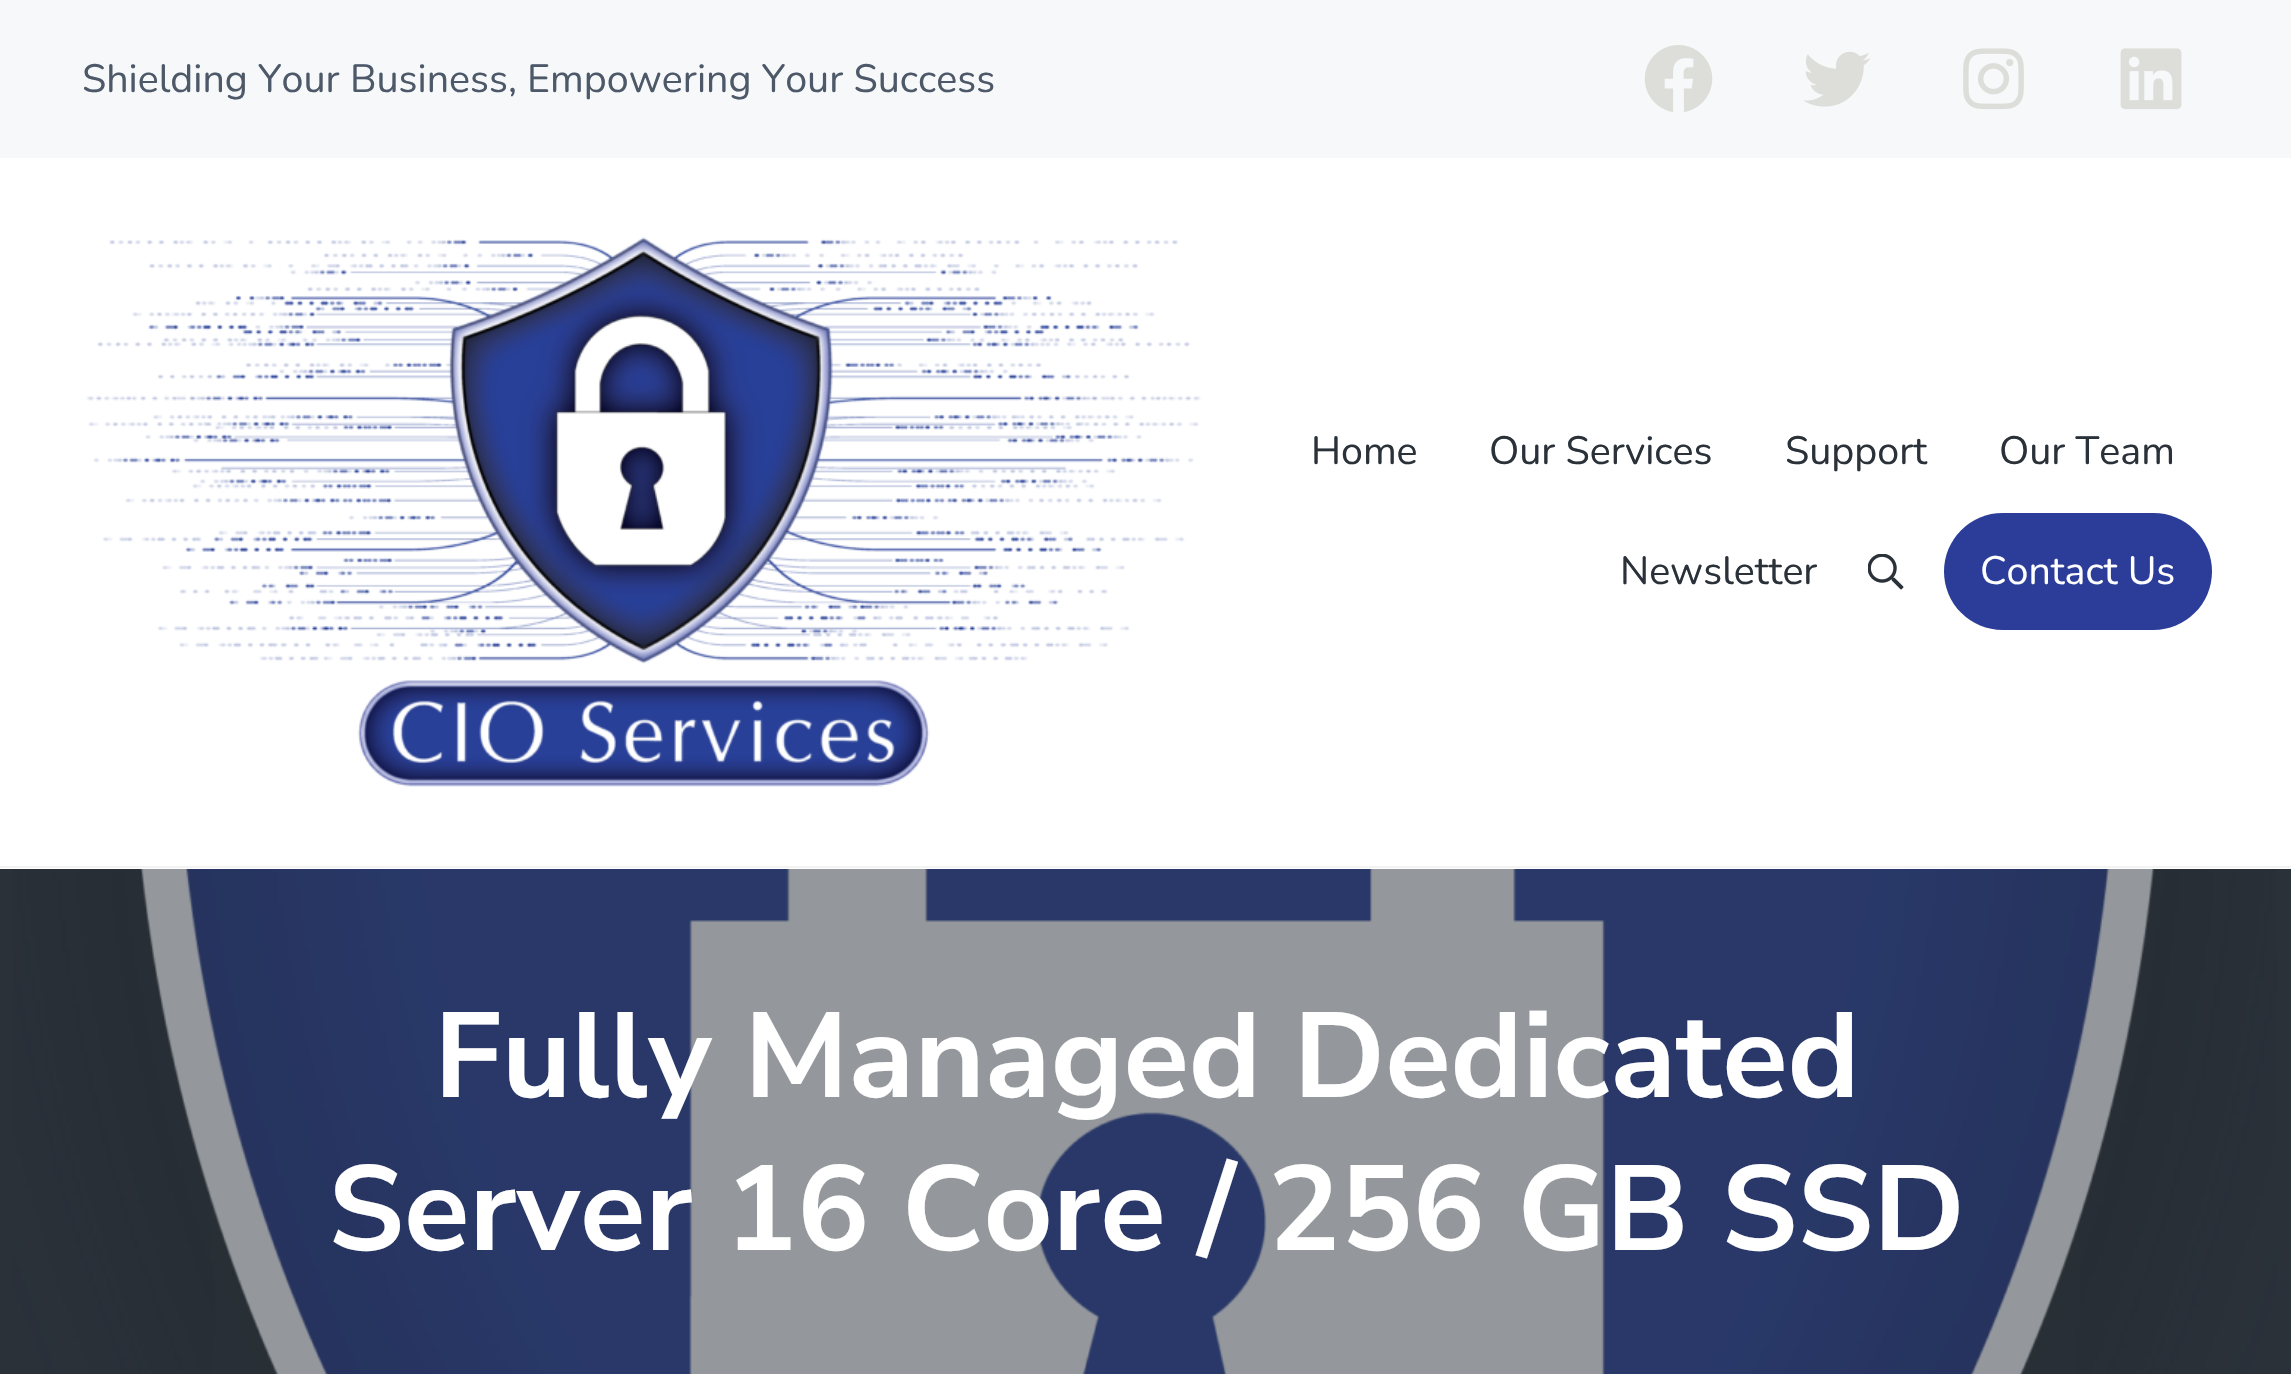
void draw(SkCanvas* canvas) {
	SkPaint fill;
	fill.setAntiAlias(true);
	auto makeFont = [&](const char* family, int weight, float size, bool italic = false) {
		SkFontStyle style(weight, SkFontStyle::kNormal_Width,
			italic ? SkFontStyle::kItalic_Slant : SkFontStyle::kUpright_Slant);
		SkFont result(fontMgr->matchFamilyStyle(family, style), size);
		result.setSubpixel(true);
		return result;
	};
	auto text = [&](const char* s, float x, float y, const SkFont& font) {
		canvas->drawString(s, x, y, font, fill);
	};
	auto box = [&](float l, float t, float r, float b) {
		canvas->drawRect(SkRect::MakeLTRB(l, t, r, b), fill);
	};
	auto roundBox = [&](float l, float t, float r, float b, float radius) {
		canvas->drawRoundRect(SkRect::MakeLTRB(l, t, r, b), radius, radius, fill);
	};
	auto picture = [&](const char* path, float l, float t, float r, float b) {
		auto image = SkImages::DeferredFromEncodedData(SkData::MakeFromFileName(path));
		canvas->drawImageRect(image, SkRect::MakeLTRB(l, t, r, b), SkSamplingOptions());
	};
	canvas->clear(0xFF2A3139);
	fill.setColor(0xFFF6F8FA);
	box(0, 0, 2291, 158);
	picture("image0.png", 1644, 45, 1713, 112);
	picture("image1.png", 1803, 51, 1871, 107);
	picture("image2.png", 1963, 48, 2024, 110);
	picture("image3.png", 2120, 48, 2182, 110);
	fill.setColor(0xFFFFFFFF);
	box(0, 158, 2291, 869);
	fill.setColor(0xFFF3F3F4);
	box(0, 866, 2291, 868);
	picture("image4.png", 86, 237, 1201, 787);
	picture("image5.png", 1868, 554, 1904, 590);
	fill.setColor(0xFF2B3D98);
	roundBox(1944, 513, 2212, 630, 58.5f);
	picture("image6.png", 13, 869, 2277, 1374);
	auto font1 = makeFont("Nunito", 400, 39.4f);
	fill.setColor(0xFF4D5968);
	text("Shielding Your Business, Empowering Your Success", 82, 92, font1);
	fill.setColor(0xFF2A3139);
	text("Home", 1311, 464, font1);
	text("Our Services", 1489, 464, font1);
	text("Support", 1785, 464, font1);
	text("Our Team", 1999, 464, font1);
	text("Newsletter", 1620, 584, font1);
	fill.setColor(0xFFFFFFFF);
	text("Contact Us", 1980, 584, font1);
	auto font2 = makeFont("Nunito Sans", 200, 120.4f);
	text("Fully Managed Dedicated", 434, 1097, font2);
	text("Server 16 Core / 256 GB SSD", 328, 1250, font2);
}
